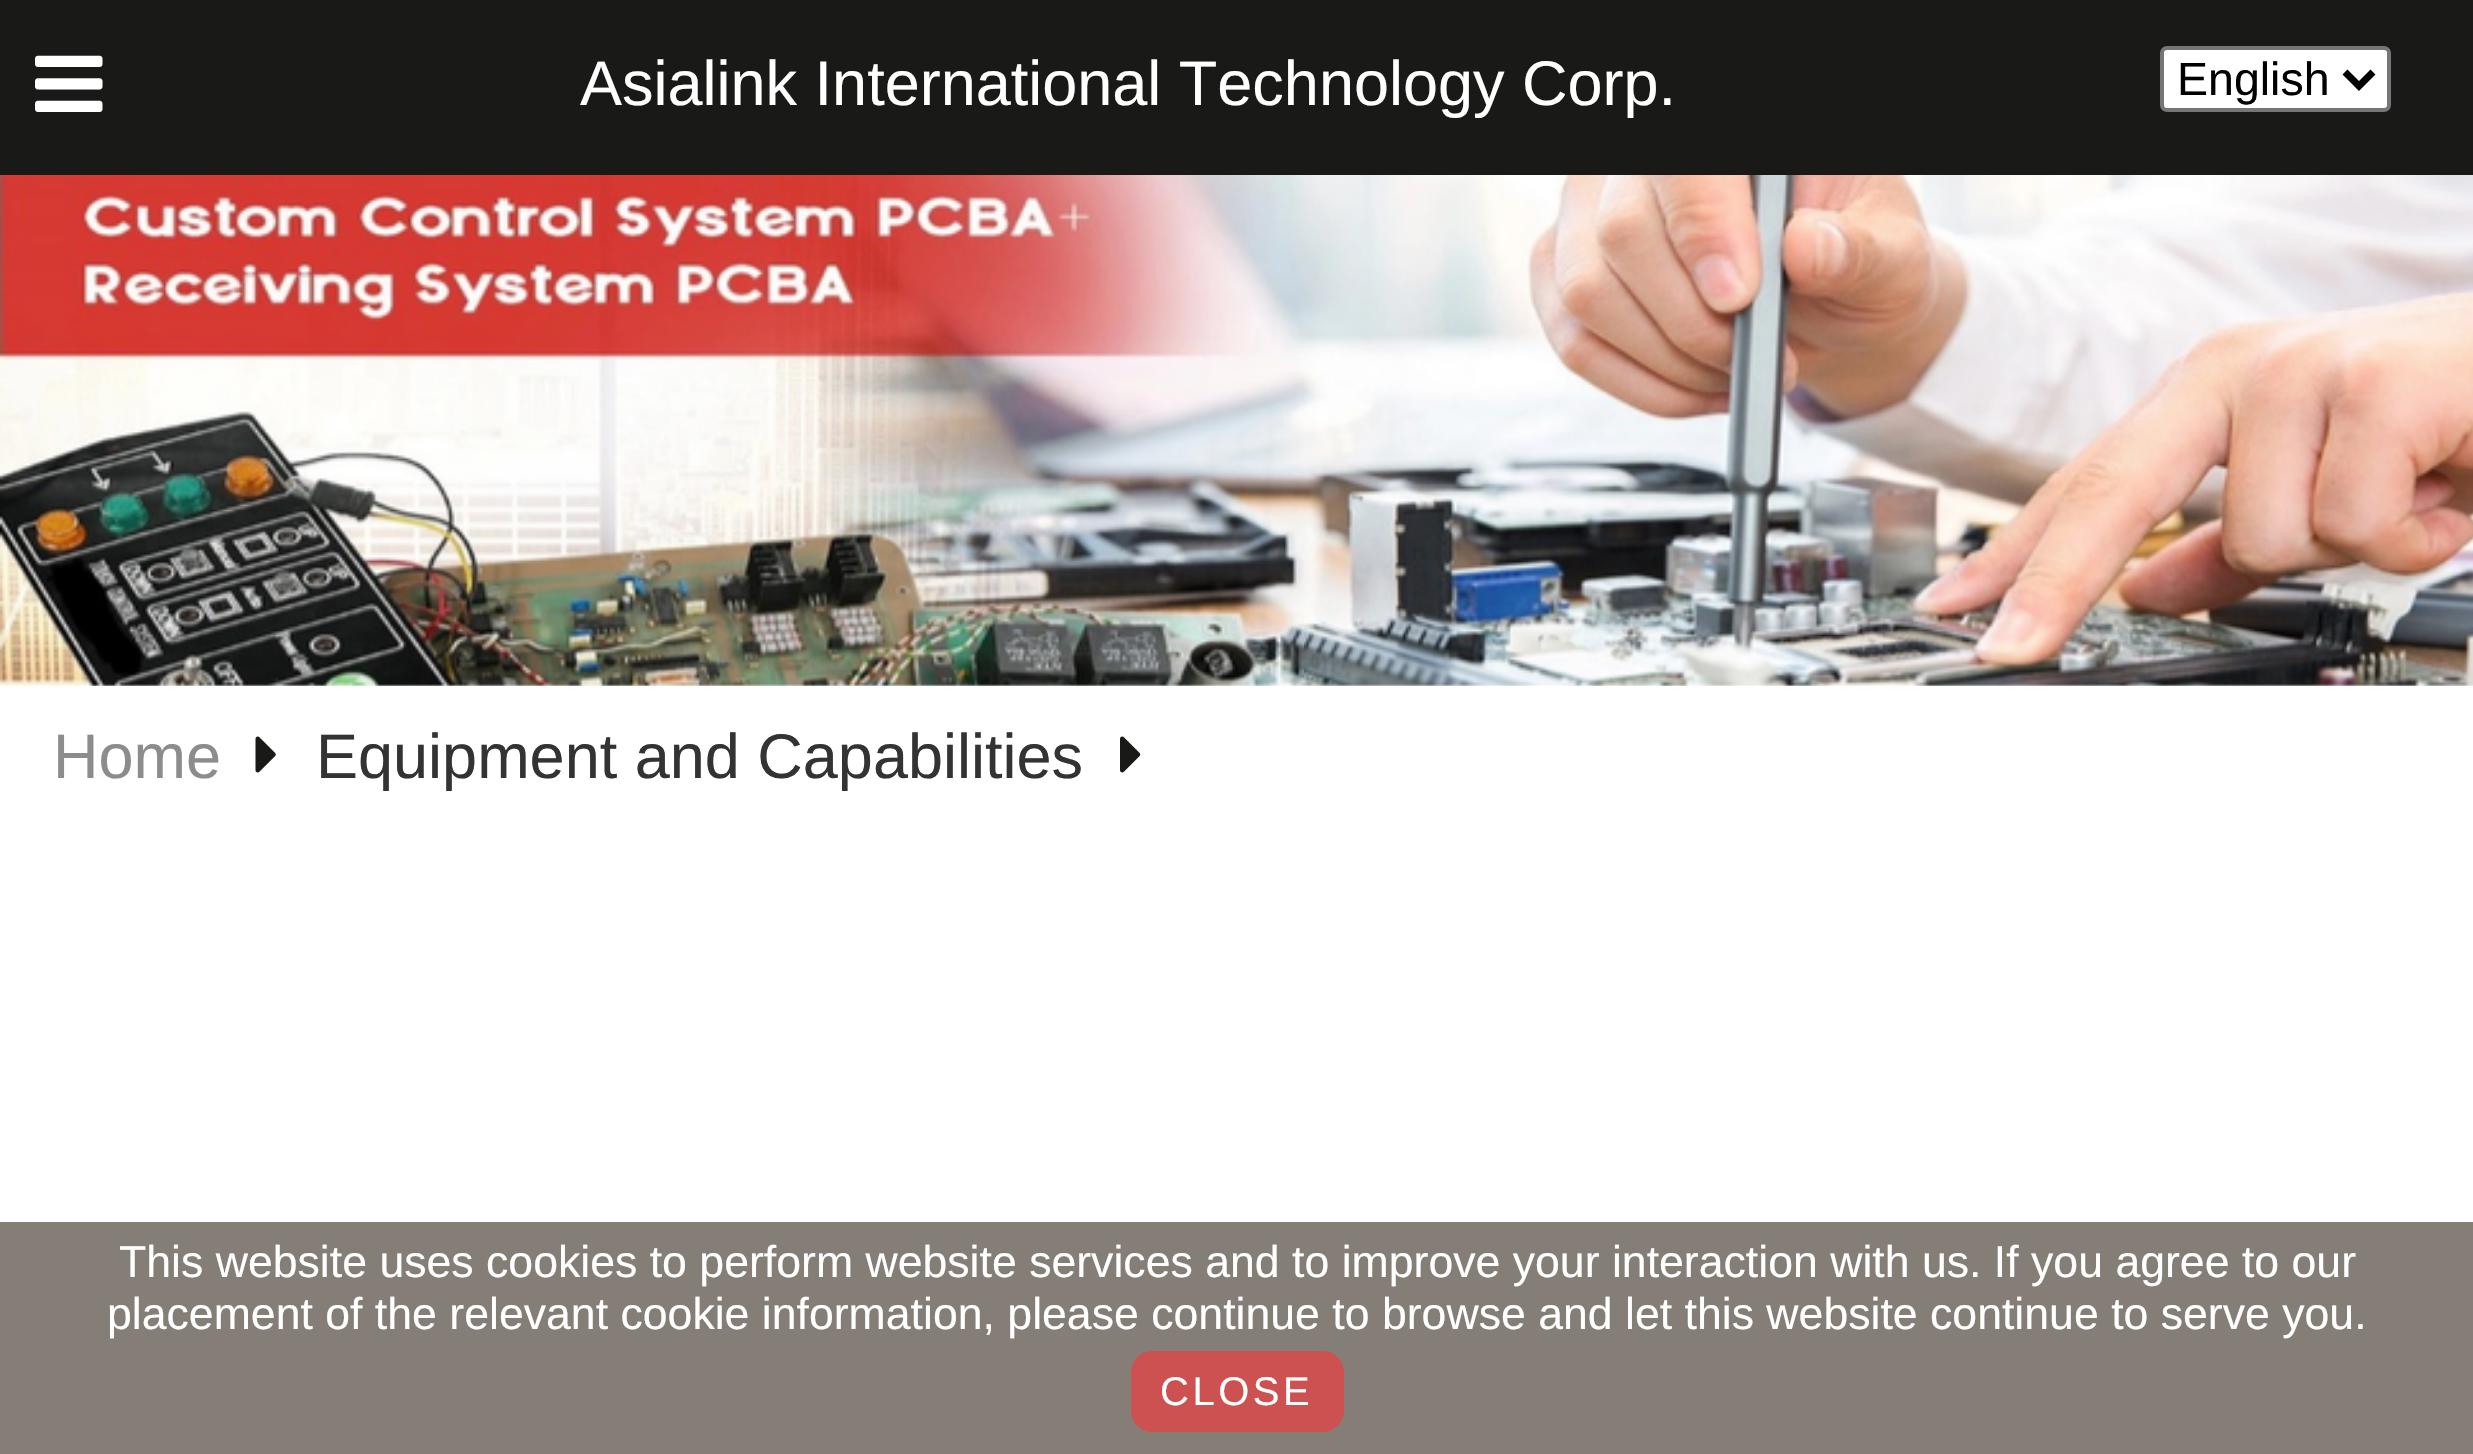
void draw(SkCanvas* canvas) {
	SkPaint fill;
	fill.setAntiAlias(true);
	auto makeFont = [&](const char* family, int weight, float size, bool italic = false) {
		SkFontStyle style(weight, SkFontStyle::kNormal_Width,
			italic ? SkFontStyle::kItalic_Slant : SkFontStyle::kUpright_Slant);
		SkFont result(fontMgr->matchFamilyStyle(family, style), size);
		result.setSubpixel(true);
		return result;
	};
	auto text = [&](const char* s, float x, float y, const SkFont& font) {
		canvas->drawString(s, x, y, font, fill);
	};
	auto spacedText = [&](const char* s, float x, float y, const SkFont& font, const SkPaint& ink, float letter, float word) {
		std::vector<SkGlyphID> glyphs(font.countText(s, strlen(s), SkTextEncoding::kUTF8));
		std::vector<float> xs(glyphs.size());
		font.textToGlyphs(s, strlen(s), SkTextEncoding::kUTF8, glyphs);
		font.getXPos(glyphs, xs, x);
		float extra = 0;
		for (size_t i = 0; i < glyphs.size(); i++) {
			xs[i] += extra;
			extra += letter + word * (glyphs[i] == font.unicharToGlyph(' '));
		}
		canvas->drawTextBlob(SkTextBlob::MakeFromPosHGlyphs(glyphs, xs, y, font), 0, 0, ink);
	};
	auto box = [&](float l, float t, float r, float b) {
		canvas->drawRect(SkRect::MakeLTRB(l, t, r, b), fill);
	};
	auto roundBox = [&](float l, float t, float r, float b, float radius) {
		canvas->drawRoundRect(SkRect::MakeLTRB(l, t, r, b), radius, radius, fill);
	};
	auto picture = [&](const char* path, float l, float t, float r, float b) {
		auto image = SkImages::DeferredFromEncodedData(SkData::MakeFromFileName(path));
		canvas->drawImageRect(image, SkRect::MakeLTRB(l, t, r, b), SkSamplingOptions());
	};
	canvas->clear(0xFFFFFFFF);
	picture("image0.png", 0, 175, 2473, 686);
	picture("image1.png", 255, 736, 276, 773);
	picture("image2.png", 1120, 736, 1141, 773);
	fill.setColor(0xFF191918);
	box(0, 0, 2473, 175);
	picture("image3.png", 35, 55, 103, 112);
	fill.setColor(0xFFFFFFFF);
	canvas->drawRoundRect(SkRect::MakeLTRB(2162, 48, 2389, 110), 5, 5, fill);
	fill.setStyle(SkPaint::kStroke_Style);
	fill.setStrokeWidth(4);
	fill.setColor(0xFF767676);
	canvas->drawRoundRect(SkRect::MakeLTRB(2162, 48, 2389, 110), 5, 5, fill);
	fill.setStrokeWidth(7);
	fill.setColor(0xFF000000);
	canvas->drawPath(SkPathBuilder().moveTo(2345, 72).lineTo(2359, 86).lineTo(2373, 72).detach(), fill);
	fill.setStyle(SkPaint::kFill_Style);
	fill.setColor(0xFF857E76);
	box(0, 1222, 2473, 1454);
	fill.setColor(0xFFCD5151);
	roundBox(1131, 1351, 1344, 1432, 21);
	auto font1 = makeFont("Liberation Sans", 400, 63);
	fill.setColor(0xFFFFFFFF);
	text("Asialink International Technology Corp.", 580, 105, font1);
	fill.setColor(0xFF8C8C8C);
	text("Home", 53, 778, font1);
	fill.setColor(0xFF333333);
	text("Equipment and Capabilities", 316, 778, font1);
	auto font2 = makeFont("Liberation Sans", 400, 46.5f);
	fill.setColor(0xFF000000);
	text("English", 2177, 95, font2);
	auto font3 = makeFont("Liberation Sans", 400, 44.62f);
	fill.setColor(0xFFFFFFFF);
	text("This website uses cookies to perform website services and to improve your interaction with us. If you agree to our", 119, 1277, font3);
	text("placement of the relevant cookie information, please continue to browse and let this website continue to serve you.", 107, 1329, font3);
	auto font4 = makeFont("Liberation Sans", 400, 40);
	spacedText("CLOSE", 1160, 1405, font4, fill, 3.5f, 0);
}
